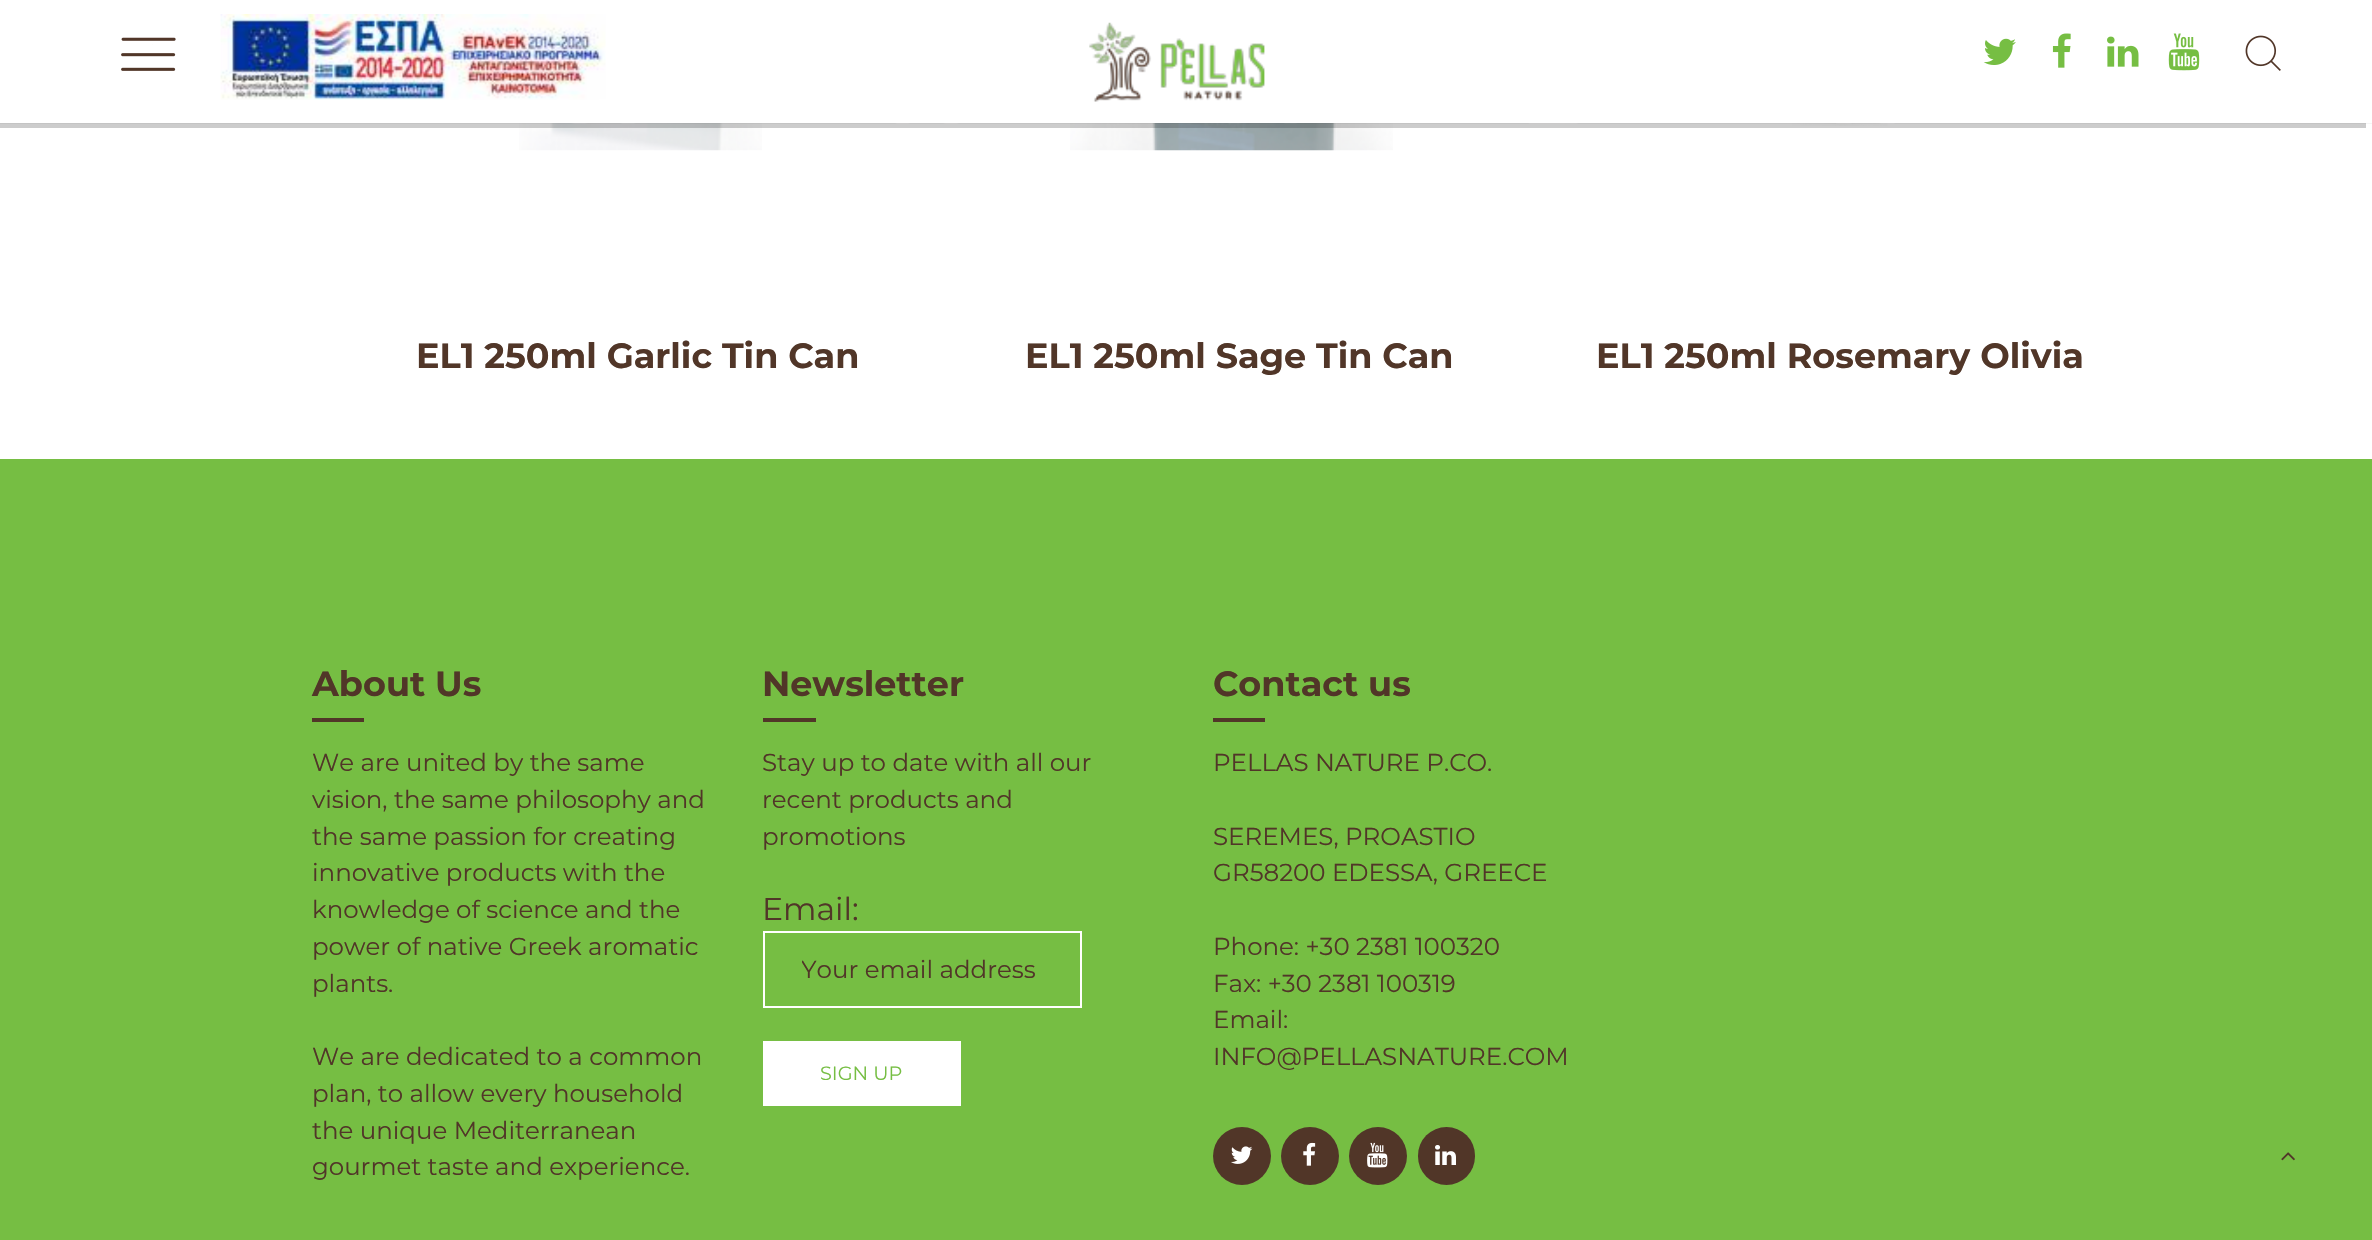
void draw(SkCanvas* canvas) {
	SkPaint fill;
	fill.setAntiAlias(true);
	auto makeFont = [&](const char* family, int weight, float size, bool italic = false) {
		SkFontStyle style(weight, SkFontStyle::kNormal_Width,
			italic ? SkFontStyle::kItalic_Slant : SkFontStyle::kUpright_Slant);
		SkFont result(fontMgr->matchFamilyStyle(family, style), size);
		result.setSubpixel(true);
		return result;
	};
	auto text = [&](const char* s, float x, float y, const SkFont& font) {
		canvas->drawString(s, x, y, font, fill);
	};
	auto box = [&](float l, float t, float r, float b) {
		canvas->drawRect(SkRect::MakeLTRB(l, t, r, b), fill);
	};
	auto roundBox = [&](float l, float t, float r, float b, float radius) {
		canvas->drawRoundRect(SkRect::MakeLTRB(l, t, r, b), radius, radius, fill);
	};
	auto picture = [&](const char* path, float l, float t, float r, float b) {
		auto image = SkImages::DeferredFromEncodedData(SkData::MakeFromFileName(path));
		canvas->drawImageRect(image, SkRect::MakeLTRB(l, t, r, b), SkSamplingOptions());
	};
	canvas->clear(0xFFFFFFFF);
	picture("image9.png", 519, 123, 762, 151);
	picture("image10.png", 1070, 123, 1393, 151);
	picture("image11.png", 1779, 123, 1901, 126);
	fill.setColor(0x33000000);
	canvas->drawPath(SkPathBuilder().moveTo(-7, 5).lineTo(-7, 128).lineTo(2366, 128).lineTo(2366, 122).lineTo(0, 122).lineTo(0, 5).close().detach(), fill);
	picture("image0.png", 0, 123, 2372, 124);
	fill.setColor(0xFFFFFFFF);
	box(0, 122, 2366, 123);
	picture("image1.png", 121, 37, 176, 71);
	picture("image2.png", 220, 14, 606, 100);
	picture("image3.png", 1089, 22, 1265, 102);
	picture("image4.png", 1983, 38, 2016, 65);
	picture("image5.png", 2052, 33, 2071, 68);
	picture("image6.png", 2107, 36, 2139, 67);
	picture("image7.png", 2168, 33, 2200, 71);
	picture("image8.png", 2245, 35, 2281, 71);
	fill.setColor(0xFF76BE43);
	box(0, 459, 2372, 1240);
	fill.setColor(0xFF513628);
	box(312, 718, 364, 722);
	box(763, 718, 816, 722);
	fill.setStyle(SkPaint::kStroke_Style);
	fill.setStrokeWidth(2);
	fill.setColor(0xFFFFFFFF);
	canvas->drawRect(SkRect::MakeLTRB(764, 932, 1081, 1007), fill);
	fill.setStyle(SkPaint::kFill_Style);
	box(763, 1041, 961, 1106);
	fill.setColor(0xFF513628);
	box(1213, 718, 1265, 722);
	canvas->drawCircle(1242, 1156, 29, fill);
	picture("image12.png", 1231, 1146, 1253, 1164);
	canvas->drawCircle(1310, 1156, 29, fill);
	picture("image13.png", 1303, 1142, 1316, 1166);
	canvas->drawCircle(1378, 1156, 29, fill);
	picture("image14.png", 1367, 1142, 1388, 1168);
	roundBox(1418, 1127, 1475, 1185, 28.5f);
	picture("image15.png", 1435, 1145, 1456, 1165);
	picture("image16.png", 2281, 1152, 2295, 1161);
	auto font1 = makeFont("Montserrat", 700, 35);
	text("EL1 250ml Garlic Tin Can", 416, 368, font1);
	text("EL1 250ml Sage Tin Can", 1025, 368, font1);
	text("EL1 250ml Rosemary Olivia", 1596, 368, font1);
	text("About Us", 312, 696, font1);
	auto font2 = makeFont("Montserrat", 400, 24.5f);
	text("We are united by the same", 312, 771, font2);
	text("vision, the same philosophy and", 312, 808, font2);
	text("the same passion for creating", 312, 845, font2);
	text("innovative products with the", 312, 881, font2);
	text("knowledge of science and the", 312, 918, font2);
	text("power of native Greek aromatic", 312, 955, font2);
	text("plants.", 312, 992, font2);
	text("We are dedicated to a common", 312, 1065, font2);
	text("plan, to allow every household", 312, 1102, font2);
	text("the unique Mediterranean", 312, 1139, font2);
	text("gourmet taste and experience.", 312, 1175, font2);
	text("Newsletter", 762, 696, font1);
	text("Stay up to date with all our", 762, 771, font2);
	text("recent products and", 762, 808, font2);
	text("promotions", 762, 845, font2);
	auto font3 = makeFont("Montserrat", 400, 31.5f);
	text("Email:", 762, 920, font3);
	canvas->save();
	canvas->clipRect(SkRect::MakeLTRB(802, 954, 1043, 985));
	text("Your email address", 801, 978, font2);
	canvas->restore();
	auto font4 = makeFont("Montserrat", 400, 19.25f);
	fill.setColor(0xFF76BE43);
	text("SIGN UP", 820, 1080, font4);
	fill.setColor(0xFF513628);
	text("Contact us", 1213, 696, font1);
	text("PELLAS NATURE P.CO.", 1213, 771, font2);
	text("SEREMES, PROASTIO", 1213, 845, font2);
	text("GR58200 EDESSA, GREECE", 1213, 881, font2);
	text("Phone: +30 2381 100320", 1213, 955, font2);
	text("Fax: +30 2381 100319", 1213, 992, font2);
	text("Email:", 1213, 1028, font2);
	text("INFO@PELLASNATURE.COM", 1213, 1065, font2);
}
